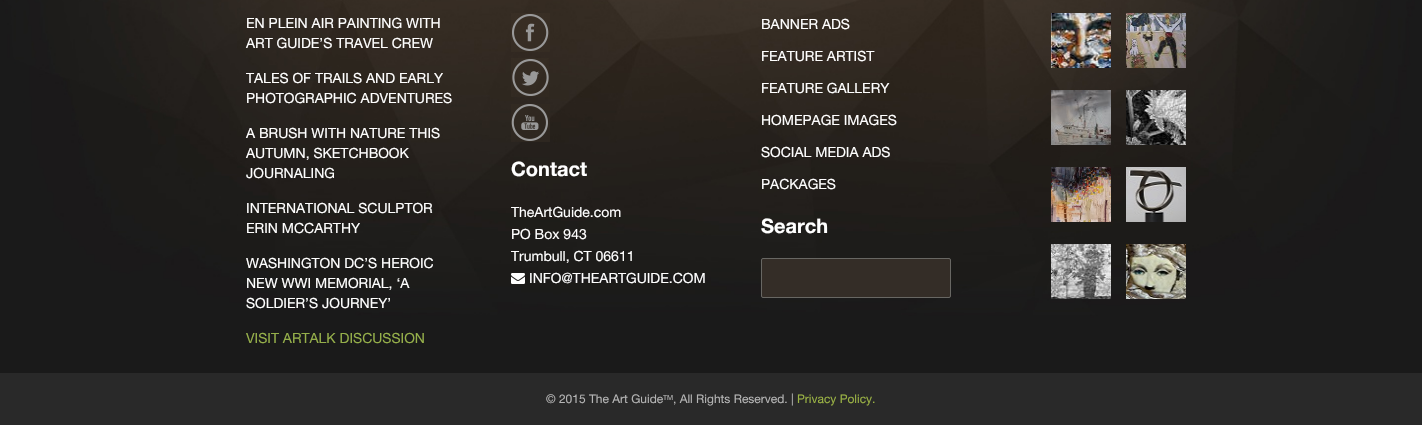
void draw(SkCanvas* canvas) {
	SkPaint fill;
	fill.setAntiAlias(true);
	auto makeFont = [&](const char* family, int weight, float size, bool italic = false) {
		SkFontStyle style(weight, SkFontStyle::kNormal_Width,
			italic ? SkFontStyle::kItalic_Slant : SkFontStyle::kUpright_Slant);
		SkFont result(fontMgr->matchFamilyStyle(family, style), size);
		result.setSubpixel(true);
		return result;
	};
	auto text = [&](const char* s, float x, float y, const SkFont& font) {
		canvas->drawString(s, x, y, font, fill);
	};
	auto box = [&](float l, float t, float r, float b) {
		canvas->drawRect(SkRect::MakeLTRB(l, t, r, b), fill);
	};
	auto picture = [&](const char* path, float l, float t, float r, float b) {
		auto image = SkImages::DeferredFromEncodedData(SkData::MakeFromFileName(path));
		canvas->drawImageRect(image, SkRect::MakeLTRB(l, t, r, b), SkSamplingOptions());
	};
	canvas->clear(0xFFFFFFFF);
	picture("image0.png", 0, 0, 1422, 373);
	picture("image1.png", 511, 13, 550, 52);
	picture("image2.png", 511, 58, 549, 97);
	picture("image3.png", 511, 104, 550, 142);
	picture("image4.png", 511, 273, 525, 284);
	fill.setColor(0xFF342D27);
	canvas->drawRoundRect(SkRect::MakeLTRB(761.5f, 258.5f, 950.5f, 297.5f), 1.5f, 1.5f, fill);
	fill.setStyle(SkPaint::kStroke_Style);
	fill.setStrokeWidth(1);
	fill.setColor(0xFF686763);
	canvas->drawRoundRect(SkRect::MakeLTRB(761.5f, 258.5f, 950.5f, 297.5f), 1.5f, 1.5f, fill);
	picture("image5.png", 1051, 13, 1111, 68);
	picture("image6.png", 1126, 13, 1186, 68);
	picture("image7.png", 1051, 90, 1111, 145);
	picture("image8.png", 1126, 90, 1186, 145);
	picture("image9.png", 1051, 167, 1111, 222);
	picture("image10.png", 1126, 167, 1186, 222);
	picture("image11.png", 1051, 244, 1111, 299);
	picture("image12.png", 1126, 244, 1186, 299);
	fill.setStyle(SkPaint::kFill_Style);
	fill.setColor(0xFF292929);
	box(0, 373, 1422, 425);
	auto font1 = makeFont("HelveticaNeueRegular", 400, 14);
	fill.setColor(0xFFFFFFFF);
	text("EN PLEIN AIR PAINTING WITH", 246, 28, font1);
	text("ART GUIDE’S TRAVEL CREW", 246, 48, font1);
	text("TALES OF TRAILS AND EARLY", 246, 83, font1);
	text("PHOTOGRAPHIC ADVENTURES", 246, 103, font1);
	text("A BRUSH WITH NATURE THIS", 246, 138, font1);
	text("AUTUMN, SKETCHBOOK", 246, 158, font1);
	text("JOURNALING", 246, 178, font1);
	text("INTERNATIONAL SCULPTOR", 246, 213, font1);
	text("ERIN MCCARTHY", 246, 233, font1);
	text("WASHINGTON DC’S HEROIC", 246, 268, font1);
	text("NEW WWI MEMORIAL, ‘A", 246, 288, font1);
	text("SOLDIER’S JOURNEY’", 246, 308, font1);
	fill.setColor(0xFF95AF4A);
	text("VISIT ARTALK DISCUSSION", 246, 343, font1);
	auto font2 = makeFont("Helvetica Neue", 700, 20);
	fill.setColor(0xFFFFFFFF);
	text("Contact", 511, 176, font2);
	text("TheArtGuide.com", 511, 217, font1);
	text("PO Box 943", 511, 239, font1);
	text("Trumbull, CT 06611", 511, 261, font1);
	text("INFO@THEARTGUIDE.COM", 529, 283, font1);
	text("BANNER ADS", 761, 29, font1);
	text("FEATURE ARTIST", 761, 61, font1);
	text("FEATURE GALLERY", 761, 93, font1);
	text("HOMEPAGE IMAGES", 761, 125, font1);
	text("SOCIAL MEDIA ADS", 761, 157, font1);
	text("PACKAGES", 761, 189, font1);
	text("Search", 761, 233, font2);
	auto font3 = makeFont("HelveticaNeueRegular", 400, 12);
	fill.setColor(0xFFB5B5B5);
	text("© 2015 The Art Guide", 546, 403, font3);
	auto font4 = makeFont("HelveticaNeueRegular", 400, 7);
	text("TM", 663, 400, font4);
	text(", All Rights Reserved. |", 673, 403, font3);
	fill.setColor(0xFF9AB244);
	text("Privacy Policy.", 797, 403, font3);
}
